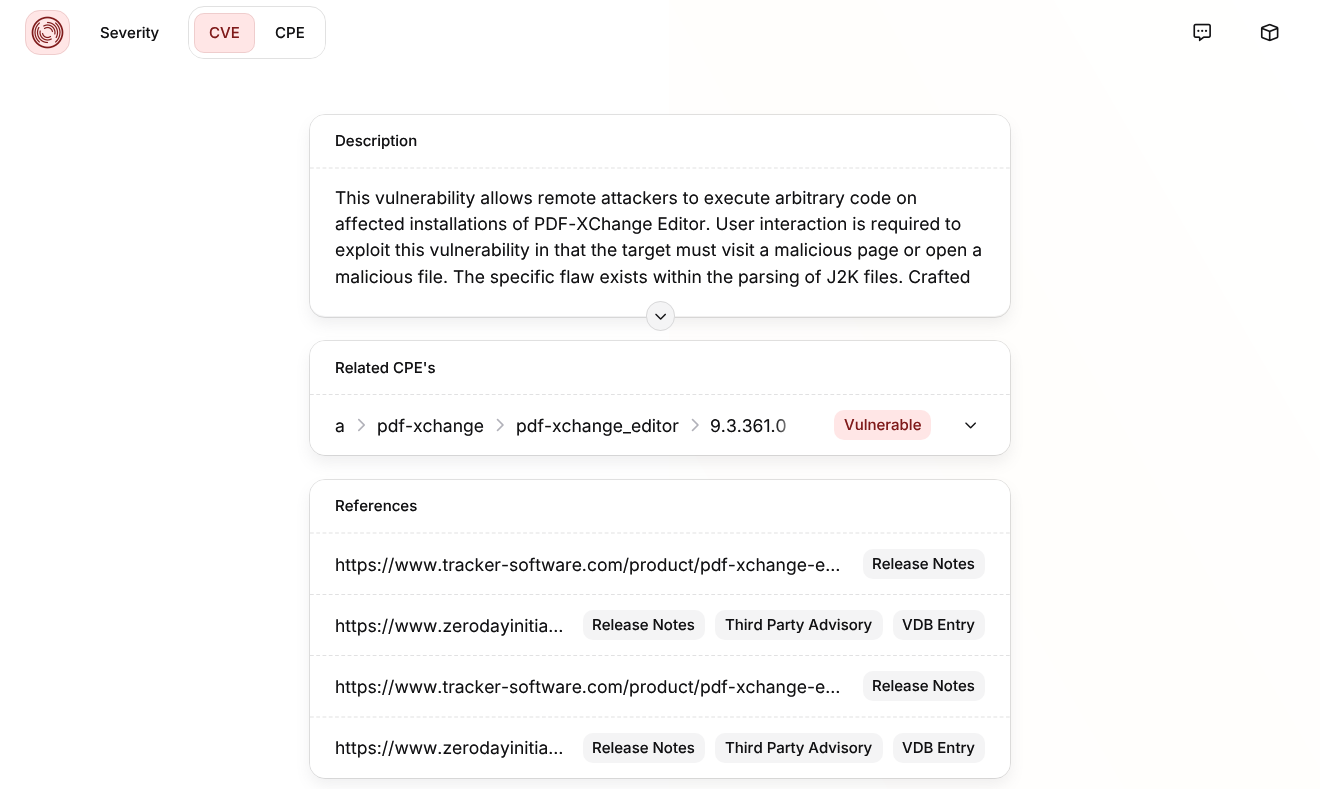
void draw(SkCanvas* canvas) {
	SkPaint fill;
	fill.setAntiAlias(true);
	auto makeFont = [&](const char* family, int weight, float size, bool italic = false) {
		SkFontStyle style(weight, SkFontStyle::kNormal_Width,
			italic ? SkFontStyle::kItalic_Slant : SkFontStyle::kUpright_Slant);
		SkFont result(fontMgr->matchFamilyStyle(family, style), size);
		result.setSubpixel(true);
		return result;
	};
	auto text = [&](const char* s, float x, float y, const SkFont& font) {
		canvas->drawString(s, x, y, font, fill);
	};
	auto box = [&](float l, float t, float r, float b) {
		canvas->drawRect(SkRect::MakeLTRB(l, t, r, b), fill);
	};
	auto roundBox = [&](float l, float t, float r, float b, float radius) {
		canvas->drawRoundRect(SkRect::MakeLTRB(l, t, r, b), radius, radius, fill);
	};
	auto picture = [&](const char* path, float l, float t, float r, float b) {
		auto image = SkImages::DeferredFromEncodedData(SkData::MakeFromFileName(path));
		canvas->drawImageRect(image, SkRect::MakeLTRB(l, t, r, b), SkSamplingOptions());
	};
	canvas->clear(0xFFFFFFFF);
	{
		const SkColor colors[] = {0xFFFFFFFF, 0xFFFFFFFF, 0xFFFFFEFC, 0xFFFFFFFF};
		const float stops[] = {0, 0.3f, 0.7f, 1};
		const SkPoint ends[] = {{-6, 780}, {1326, 10}};
		fill.setShader(SkGradientShader::MakeLinear(ends, colors, stops, 4, SkTileMode::kClamp));
		fill.setAlpha(255);
	}
	box(669, 0, 1320, 789);
	fill.setShader(nullptr);
	fill.setColor(0xFFFFE6E6);
	roundBox(25, 10, 70, 55, 15);
	fill.setStyle(SkPaint::kStroke_Style);
	fill.setStrokeWidth(1);
	fill.setColor(0x1F7F1A1A);
	canvas->drawRoundRect(SkRect::MakeLTRB(25.5f, 10.5f, 69.5f, 54.5f), 14.5f, 14.5f, fill);
	picture("image0.png", 31, 16, 64, 49);
	fill.setColor(0xFFE1E1E1);
	canvas->drawRoundRect(SkRect::MakeLTRB(188.5f, 6.5f, 325.5f, 58.5f), 15.5f, 15.5f, fill);
	fill.setStyle(SkPaint::kFill_Style);
	fill.setColor(0xFFFFFFFF);
	roundBox(189, 8, 325, 58, 15);
	fill.setColor(0xFFFFE6E6);
	roundBox(194, 13, 255, 53, 10);
	fill.setStyle(SkPaint::kStroke_Style);
	fill.setColor(0x1F7F1A1A);
	canvas->drawRoundRect(SkRect::MakeLTRB(194.5f, 13.5f, 254.5f, 52.5f), 9.5f, 9.5f, fill);
	picture("image1.png", 1193, 23, 1211, 42);
	picture("image2.png", 1260, 23, 1279, 42);
	fill.setStyle(SkPaint::kFill_Style);
	fill.setColor(0x1F797986);
	fill.setMaskFilter(SkMaskFilter::MakeBlur(kNormal_SkBlurStyle, 7.5f));
	canvas->drawRoundRect(SkRect::MakeLTRB(310, 123, 1010, 324), 15, 15, fill);
	fill.setMaskFilter(nullptr);
	fill.setStyle(SkPaint::kStroke_Style);
	fill.setColor(0x1F111113);
	canvas->drawRoundRect(SkRect::MakeLTRB(309.5f, 114.5f, 1010.5f, 317.5f), 15.5f, 15.5f, fill);
	fill.setStyle(SkPaint::kFill_Style);
	fill.setColor(0xFFFFFFFF);
	roundBox(310, 115, 1010, 316, 15);
	fill.setStyle(SkPaint::kStroke_Style);
	fill.setStrokeWidth(1.2f);
	fill.setColor(0xFFE1E1E2);
	fill.setPathEffect(SkDashPathEffect::Make({{3.75f, 2.52f}}, 0));
	canvas->drawPath(SkPathBuilder().moveTo(310, 168).lineTo(1010, 168).detach(), fill);
	fill.setPathEffect(nullptr);
	fill.setStyle(SkPaint::kFill_Style);
	fill.setColor(0x1F797986);
	fill.setMaskFilter(SkMaskFilter::MakeBlur(kNormal_SkBlurStyle, 7.5f));
	canvas->drawRoundRect(SkRect::MakeLTRB(310, 349, 1010, 463), 15, 15, fill);
	fill.setMaskFilter(nullptr);
	fill.setColor(0xFFF4F4F5);
	roundBox(646, 301, 675, 331, 14.5f);
	fill.setStyle(SkPaint::kStroke_Style);
	fill.setStrokeWidth(1);
	fill.setColor(0x1F111113);
	canvas->drawRoundRect(SkRect::MakeLTRB(646.5f, 301.5f, 674.5f, 330.5f), 14, 14, fill);
	picture("image3.png", 655, 313, 666, 320);
	canvas->drawRoundRect(SkRect::MakeLTRB(309.5f, 340.5f, 1010.5f, 455.5f), 15.5f, 15.5f, fill);
	fill.setStyle(SkPaint::kFill_Style);
	fill.setColor(0xFFFFFFFF);
	roundBox(310, 341, 1010, 455, 15);
	fill.setStyle(SkPaint::kStroke_Style);
	fill.setStrokeWidth(1.2f);
	fill.setColor(0xFFE1E1E2);
	fill.setPathEffect(SkDashPathEffect::Make({{3.75f, 2.52f}}, 0));
	canvas->drawPath(SkPathBuilder().moveTo(310, 394.5f).lineTo(1010, 394.5f).detach(), fill);
	fill.setPathEffect(nullptr);
	picture("image4.png", 358, 418, 365, 432);
	picture("image5.png", 496, 418, 504, 432);
	picture("image5.png", 691, 418, 699, 432);
	fill.setStyle(SkPaint::kFill_Style);
	fill.setColor(0xFFFFE6E6);
	roundBox(834, 410, 931, 440, 10);
	picture("image6.png", 965, 422, 976, 429);
	fill.setColor(0x1F797986);
	fill.setMaskFilter(SkMaskFilter::MakeBlur(kNormal_SkBlurStyle, 7.5f));
	canvas->drawRoundRect(SkRect::MakeLTRB(310, 488, 1010, 785), 15, 15, fill);
	fill.setMaskFilter(nullptr);
	fill.setStyle(SkPaint::kStroke_Style);
	fill.setStrokeWidth(1);
	fill.setColor(0x1F111113);
	canvas->drawRoundRect(SkRect::MakeLTRB(309.5f, 479.5f, 1010.5f, 778.5f), 15.5f, 15.5f, fill);
	fill.setStyle(SkPaint::kFill_Style);
	fill.setColor(0xFFFFFFFF);
	roundBox(310, 480, 1010, 778, 15);
	fill.setStyle(SkPaint::kStroke_Style);
	fill.setStrokeWidth(1.2f);
	fill.setColor(0xFFE1E1E2);
	fill.setPathEffect(SkDashPathEffect::Make({{3.75f, 2.52f}}, 0));
	canvas->drawPath(SkPathBuilder().moveTo(310, 533).lineTo(1010, 533).detach(), fill);
	fill.setPathEffect(nullptr);
	fill.setStyle(SkPaint::kFill_Style);
	fill.setColor(0xFFF4F4F5);
	roundBox(863, 549, 985, 579, 10);
	fill.setStyle(SkPaint::kStroke_Style);
	fill.setColor(0xFFE1E1E2);
	fill.setPathEffect(SkDashPathEffect::Make({{3.75f, 2.52f}}, 0));
	canvas->drawPath(SkPathBuilder().moveTo(310, 594.5f).lineTo(1010, 594.5f).detach(), fill);
	fill.setPathEffect(nullptr);
	fill.setStyle(SkPaint::kFill_Style);
	fill.setColor(0xFFF4F4F5);
	roundBox(583, 610, 705, 640, 10);
	roundBox(715, 610, 883, 640, 10);
	roundBox(893, 610, 985, 640, 10);
	fill.setStyle(SkPaint::kStroke_Style);
	fill.setColor(0xFFE1E1E2);
	fill.setPathEffect(SkDashPathEffect::Make({{3.75f, 2.52f}}, 0));
	canvas->drawPath(SkPathBuilder().moveTo(310, 655.5f).lineTo(1010, 655.5f).detach(), fill);
	fill.setPathEffect(nullptr);
	fill.setStyle(SkPaint::kFill_Style);
	fill.setColor(0xFFF4F4F5);
	roundBox(863, 671, 985, 701, 10);
	fill.setStyle(SkPaint::kStroke_Style);
	fill.setColor(0xFFE1E1E2);
	fill.setPathEffect(SkDashPathEffect::Make({{3.75f, 2.52f}}, 0));
	canvas->drawPath(SkPathBuilder().moveTo(310, 717).lineTo(1010, 717).detach(), fill);
	fill.setPathEffect(nullptr);
	fill.setStyle(SkPaint::kFill_Style);
	fill.setColor(0xFFF4F4F5);
	roundBox(583, 733, 705, 763, 10);
	roundBox(715, 733, 883, 763, 10);
	roundBox(893, 733, 985, 763, 10);
	auto font1 = makeFont("Inter", 500, 15);
	fill.setColor(0xFF111113);
	text("Severity", 100, 38, font1);
	fill.setColor(0xFF7F1A1A);
	text("CVE", 209, 38, font1);
	fill.setColor(0xFF111113);
	text("CPE", 275, 38, font1);
	text("Description", 335, 146, font1);
	auto font2 = makeFont("Inter", 400, 17.5f);
	text("This vulnerability allows remote attackers to execute arbitrary code on", 335, 204, font2);
	text("affected installations of PDF-XChange Editor. User interaction is required to", 335, 230, font2);
	text("exploit this vulnerability in that the target must visit a malicious page or open a", 335, 256, font2);
	text("malicious file. The specific flaw exists within the parsing of J2K files. Crafted", 335, 283, font2);
	text("Related CPE's", 335, 373, font1);
	text("a", 335, 432, font2);
	text("pdf-xchange", 377, 432, font2);
	text("pdf-xchange_editor", 516, 432, font2);
	text("9.3.361.0", 710, 432, font2);
	{
		const SkColor colors[] = {0x00FFFFFF, 0xFFFFFFFF};
		const float stops[] = {0, 0.8f};
		const SkPoint ends[] = {{774, 426}, {809, 426}};
		fill.setShader(SkGradientShader::MakeLinear(ends, colors, stops, 2, SkTileMode::kClamp));
		fill.setAlpha(255);
	}
	box(777, 419, 786, 433);
	fill.setShader(nullptr);
	fill.setColor(0xFF7F1A1A);
	text("Vulnerable", 844, 430, font1);
	fill.setColor(0xFF111113);
	text("References", 335, 511, font1);
	text("https://www.tracker-software.com/product/pdf-xchange-e…", 335, 571, font2);
	text("Release Notes", 872, 569, font1);
	text("https://www.zerodayinitia…", 335, 632, font2);
	text("Release Notes", 592, 630, font1);
	text("Third Party Advisory", 725, 630, font1);
	text("VDB Entry", 902, 630, font1);
	text("https://www.tracker-software.com/product/pdf-xchange-e…", 335, 693, font2);
	text("Release Notes", 872, 691, font1);
	text("https://www.zerodayinitia…", 335, 754, font2);
	text("Release Notes", 592, 753, font1);
	text("Third Party Advisory", 725, 753, font1);
	text("VDB Entry", 902, 753, font1);
}
